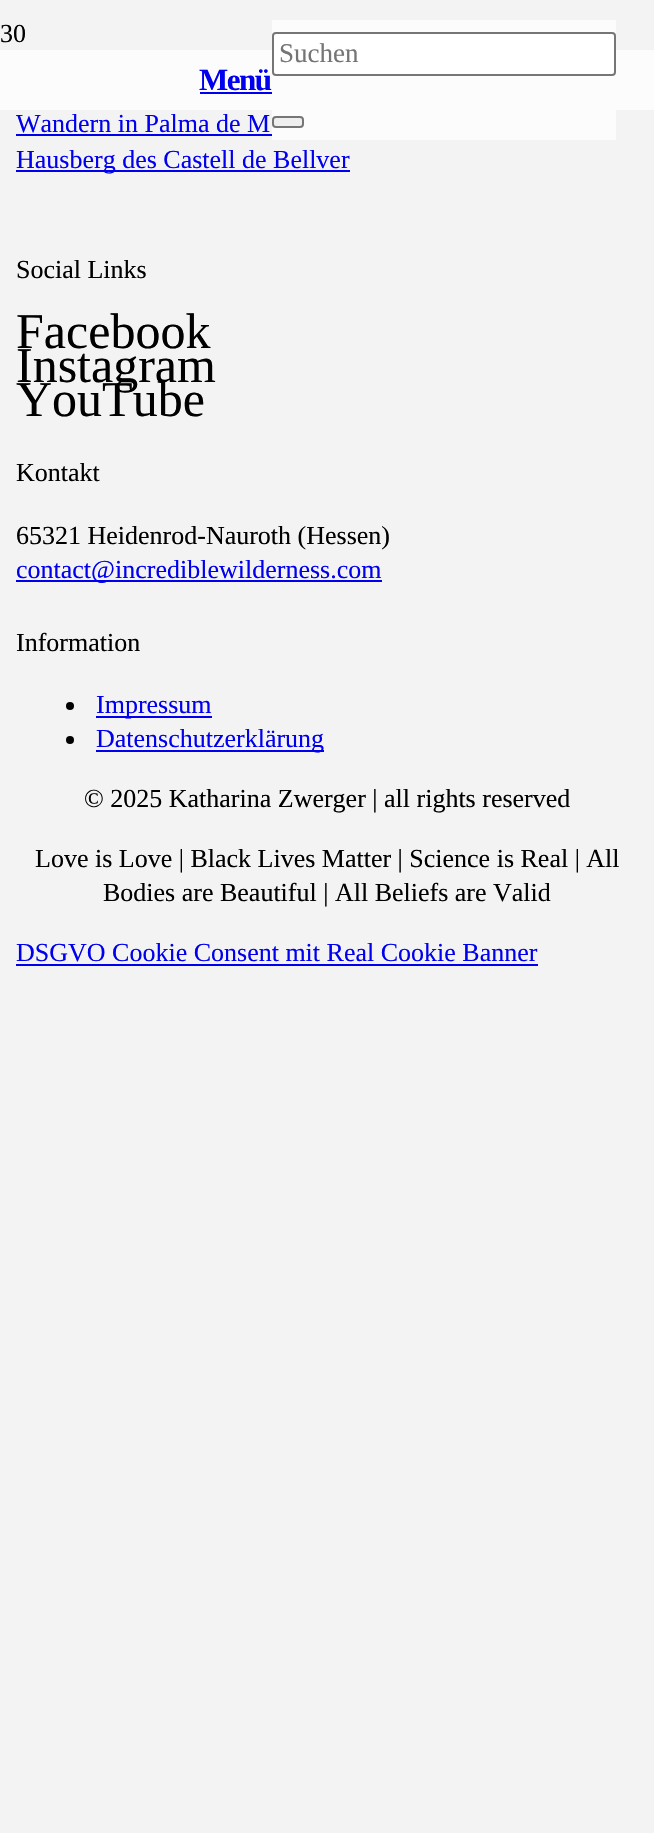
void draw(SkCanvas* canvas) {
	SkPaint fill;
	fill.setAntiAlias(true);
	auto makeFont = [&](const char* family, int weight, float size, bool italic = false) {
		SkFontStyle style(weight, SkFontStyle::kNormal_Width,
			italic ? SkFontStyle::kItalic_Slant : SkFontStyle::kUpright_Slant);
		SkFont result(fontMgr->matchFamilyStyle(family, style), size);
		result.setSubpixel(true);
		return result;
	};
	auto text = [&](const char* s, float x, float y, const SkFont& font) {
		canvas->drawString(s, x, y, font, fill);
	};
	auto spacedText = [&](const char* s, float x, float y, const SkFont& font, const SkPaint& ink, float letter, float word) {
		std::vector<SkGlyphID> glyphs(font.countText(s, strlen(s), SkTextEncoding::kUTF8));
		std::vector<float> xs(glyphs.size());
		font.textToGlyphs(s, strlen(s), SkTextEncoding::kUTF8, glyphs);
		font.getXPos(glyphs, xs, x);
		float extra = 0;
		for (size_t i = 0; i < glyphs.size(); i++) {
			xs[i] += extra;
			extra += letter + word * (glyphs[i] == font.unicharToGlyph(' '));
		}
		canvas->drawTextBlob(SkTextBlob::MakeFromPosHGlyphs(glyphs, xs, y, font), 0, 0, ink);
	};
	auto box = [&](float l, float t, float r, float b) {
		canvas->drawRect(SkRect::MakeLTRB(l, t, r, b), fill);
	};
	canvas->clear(0xFFF3F3F3);
	fill.setColor(0xFFFCFCFC);
	box(0, 50, 654, 110);
	box(272, 20, 616, 140);
	fill.setColor(0xFFFFFFFF);
	canvas->drawRoundRect(SkRect::MakeLTRB(273, 33, 615, 75), 3, 3, fill);
	fill.setStyle(SkPaint::kStroke_Style);
	fill.setStrokeWidth(2);
	fill.setColor(0xFF767676);
	canvas->drawRoundRect(SkRect::MakeLTRB(273, 33, 615, 75), 3, 3, fill);
	fill.setStyle(SkPaint::kFill_Style);
	fill.setColor(0xFFEFEFEF);
	canvas->drawRoundRect(SkRect::MakeLTRB(273, 117, 303, 127), 3, 3, fill);
	fill.setStyle(SkPaint::kStroke_Style);
	fill.setColor(0xFF767676);
	canvas->drawRoundRect(SkRect::MakeLTRB(273, 117, 303, 127), 3, 3, fill);
	fill.setStyle(SkPaint::kFill_Style);
	fill.setColor(0xFF0000EE);
	box(200, 92, 272, 94);
	box(16, 134, 272, 136);
	box(16, 170, 350, 172);
	box(16, 580, 382, 582);
	fill.setColor(0xFF000000);
	canvas->drawCircle(70, 706, 4, fill);
	fill.setColor(0xFF0000EE);
	box(96, 716, 212, 718);
	fill.setColor(0xFF000000);
	canvas->drawCircle(70, 740, 4, fill);
	fill.setColor(0xFF0000EE);
	box(96, 750, 324, 752);
	box(16, 964, 538, 966);
	auto font1 = makeFont("Liberation Serif", 400, 26);
	fill.setColor(0xFF000000);
	text("30", 0, 42, font1);
	auto font2 = makeFont("Liberation Serif", 400, 27);
	fill.setColor(0xFF757575);
	text("Suchen", 279, 62, font2);
	auto font3 = makeFont("Liberation Serif", 700, 31);
	fill.setColor(0xFF0000EE);
	spacedText("Menü", 199, 90, font3, fill, -1.5f, 0);
	text("Wandern in Palma de M", 16, 132, font1);
	text("Hausberg des Castell de Bellver", 16, 168, font1);
	fill.setColor(0xFF000000);
	text("Social Links", 16, 278, font1);
	auto font4 = makeFont("Liberation Serif", 400, 50);
	text("Facebook", 16, 348, font4);
	text("Instagram", 16, 382, font4);
	text("YouTube", 16, 416, font4);
	text("Kontakt", 16, 481, font1);
	text("65321 Heidenrod-Nauroth (Hessen)", 16, 544, font1);
	fill.setColor(0xFF0000EE);
	text("contact@incrediblewilderness.com", 16, 578, font1);
	fill.setColor(0xFF000000);
	text("Information", 16, 651, font1);
	fill.setColor(0xFF0000EE);
	text("Impressum", 96, 713, font1);
	text("Datenschutzerklärung", 96, 747, font1);
	fill.setColor(0xFF000000);
	text("© 2025 Katharina Zwerger | all rights reserved", 84, 807, font1);
	text("Love is Love | Black Lives Matter | Science is Real | All", 35, 867, font1);
	text("Bodies are Beautiful | All Beliefs are Valid", 103, 901, font1);
	fill.setColor(0xFF0000EE);
	text("DSGVO Cookie Consent mit Real Cookie Banner", 16, 961, font1);
}
